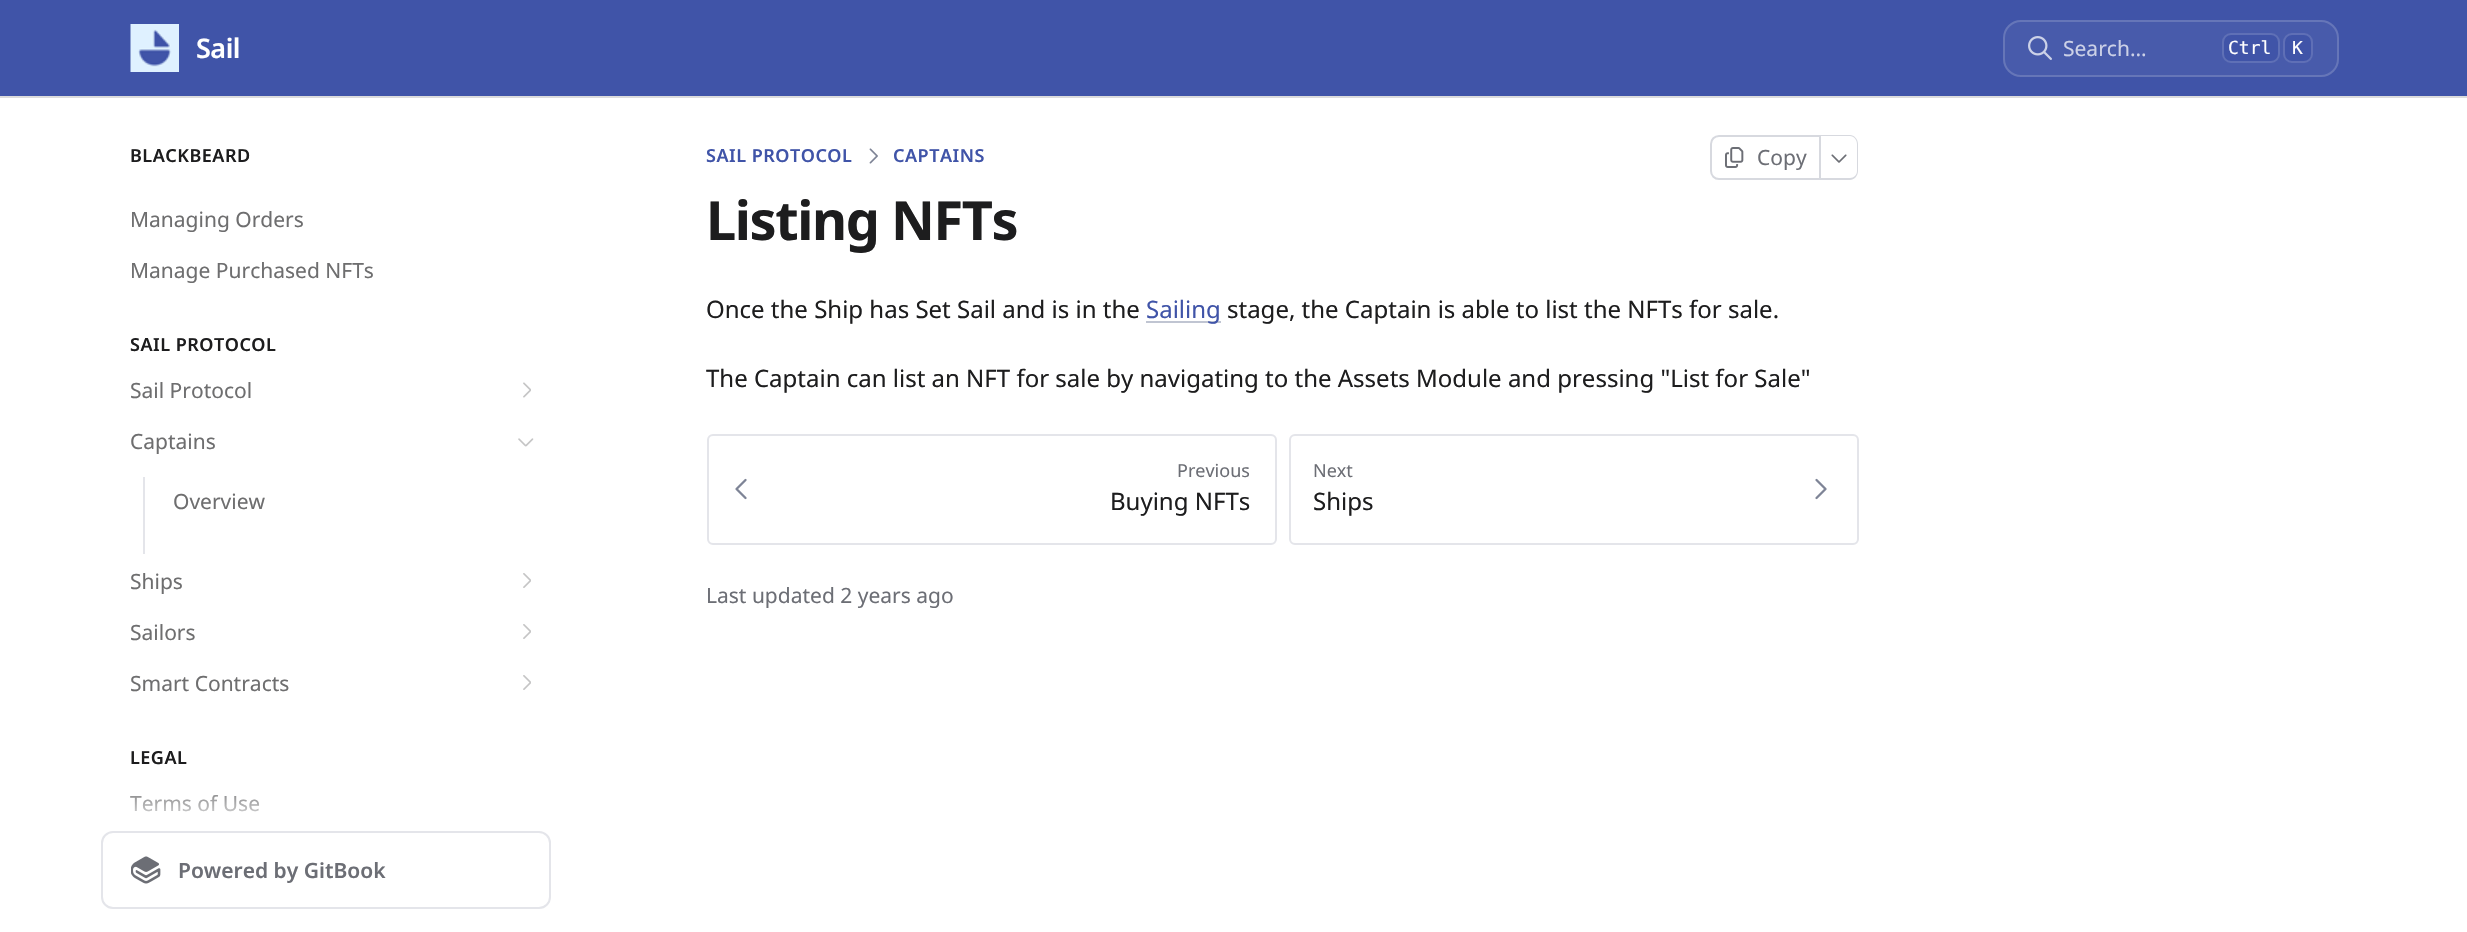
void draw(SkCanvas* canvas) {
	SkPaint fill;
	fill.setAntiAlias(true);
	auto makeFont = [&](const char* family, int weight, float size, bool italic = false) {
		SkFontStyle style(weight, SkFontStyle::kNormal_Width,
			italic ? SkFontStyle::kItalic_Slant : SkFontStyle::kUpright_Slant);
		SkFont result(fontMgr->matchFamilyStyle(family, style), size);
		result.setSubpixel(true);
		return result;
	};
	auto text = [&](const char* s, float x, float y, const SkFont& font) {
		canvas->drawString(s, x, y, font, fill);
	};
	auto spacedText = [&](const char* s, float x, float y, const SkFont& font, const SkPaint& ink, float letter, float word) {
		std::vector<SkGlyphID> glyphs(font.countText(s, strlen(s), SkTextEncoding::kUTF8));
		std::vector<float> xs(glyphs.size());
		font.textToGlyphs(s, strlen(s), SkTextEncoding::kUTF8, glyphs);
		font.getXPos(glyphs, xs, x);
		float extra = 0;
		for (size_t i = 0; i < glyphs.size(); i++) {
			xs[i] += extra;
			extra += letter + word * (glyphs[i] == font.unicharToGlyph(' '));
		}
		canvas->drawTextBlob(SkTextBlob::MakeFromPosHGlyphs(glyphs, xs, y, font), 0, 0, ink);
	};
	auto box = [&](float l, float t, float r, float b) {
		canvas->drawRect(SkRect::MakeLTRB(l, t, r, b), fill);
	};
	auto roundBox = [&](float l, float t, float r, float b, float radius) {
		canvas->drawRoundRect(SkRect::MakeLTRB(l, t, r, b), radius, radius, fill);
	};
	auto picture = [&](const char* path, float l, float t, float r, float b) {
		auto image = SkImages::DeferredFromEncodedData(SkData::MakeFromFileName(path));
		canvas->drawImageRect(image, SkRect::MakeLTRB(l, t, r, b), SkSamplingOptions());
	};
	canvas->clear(0xFFFFFFFF);
	fill.setColor(0xFFDCDCDC);
	canvas->drawPath(SkPathBuilder().moveTo(0, 96).lineTo(0, 98).lineTo(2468, 98).lineTo(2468, 2).lineTo(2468, 96).close().detach(), fill);
	fill.setColor(0xFF4054A8);
	box(0, 0, 2467, 96);
	picture("image0.png", 130, 24, 179, 72);
	fill.setColor(0xFF485BAB);
	roundBox(2003, 20, 2339, 77, 18);
	fill.setStyle(SkPaint::kStroke_Style);
	fill.setStrokeWidth(2);
	fill.setColor(0x29FFFFFF);
	canvas->drawRoundRect(SkRect::MakeLTRB(2004, 21, 2338, 76), 17, 17, fill);
	picture("image1.png", 2028, 36, 2052, 60);
	fill.setStyle(SkPaint::kFill_Style);
	fill.setColor(0xFF4054A8);
	roundBox(2222, 33, 2280, 63, 9);
	fill.setStyle(SkPaint::kStroke_Style);
	fill.setColor(0x29FFFFFF);
	canvas->drawRoundRect(SkRect::MakeLTRB(2223, 34, 2279, 62), 8, 8, fill);
	fill.setStyle(SkPaint::kFill_Style);
	fill.setColor(0xFF4054A8);
	roundBox(2283, 33, 2313, 63, 9);
	fill.setStyle(SkPaint::kStroke_Style);
	fill.setColor(0x29FFFFFF);
	canvas->drawRoundRect(SkRect::MakeLTRB(2284, 34, 2312, 62), 8, 8, fill);
	picture("image2.png", 523, 382, 531, 398);
	picture("image3.png", 518, 438, 534, 447);
	fill.setStyle(SkPaint::kFill_Style);
	fill.setColor(0xFFE4E5EA);
	box(143, 477, 145, 554);
	picture("image4.png", 523, 573, 531, 588);
	picture("image4.png", 523, 624, 531, 639);
	picture("image4.png", 523, 675, 531, 690);
	fill.setStyle(SkPaint::kStroke_Style);
	canvas->drawRoundRect(SkRect::MakeLTRB(102, 832, 550, 908), 11, 11, fill);
	picture("image5.png", 131, 856, 161, 884);
	picture("image6.png", 869, 148, 878, 164);
	fill.setColor(0xFFD7D9DF);
	canvas->drawPath(SkPathBuilder().moveTo(1719, 136).lineTo(1820, 136).lineTo(1820, 179).lineTo(1719, 179).cubicTo(1714.5f, 179, 1711, 175.5f, 1711, 171).lineTo(1711, 144).cubicTo(1711, 139.5f, 1714.5f, 136, 1719, 136).close().detach(), fill);
	picture("image7.png", 1725, 147, 1744, 168);
	fill.setStyle(SkPaint::kFill_Style);
	canvas->drawPath(SkPathBuilder(SkPathFillType::kEvenOdd).moveTo(1821, 135).lineTo(1850, 135).cubicTo(1854, 135, 1858, 139, 1858, 144).lineTo(1858, 171).cubicTo(1858, 176, 1854, 180, 1850, 180).lineTo(1821, 180).close().moveTo(1821, 136).lineTo(1850, 136).cubicTo(1854, 136, 1857, 140, 1857, 144).lineTo(1857, 171).cubicTo(1857, 175, 1854, 178, 1850, 178).lineTo(1821, 178).close().detach(), fill);
	picture("image8.png", 1831, 154, 1847, 163);
	fill.setColor(0xFFC0C5D2);
	box(1146, 321, 1221, 323);
	fill.setStyle(SkPaint::kStroke_Style);
	fill.setColor(0xFFE4E5EA);
	canvas->drawRoundRect(SkRect::MakeLTRB(708, 435, 1276, 544), 5, 5, fill);
	picture("image9.png", 735, 478, 747, 500);
	canvas->drawRoundRect(SkRect::MakeLTRB(1290, 435, 1858, 544), 5, 5, fill);
	picture("image10.png", 1815, 478, 1827, 500);
	auto font1 = makeFont("Noto Sans", 600, 27);
	fill.setStyle(SkPaint::kFill_Style);
	fill.setColor(0xFFFFFFFF);
	spacedText("Sail", 196, 58, font1, fill, -0.5f, 0);
	auto font2 = makeFont("Noto Sans", 400, 21);
	fill.setColor(0xFFCCD1E7);
	text("Search…", 2063, 56, font2);
	auto font3 = makeFont("DejaVu Sans Mono", 400, 18);
	fill.setColor(0xFFFFFFFF);
	text("Ctrl", 2228, 54, font3);
	text("K", 2292, 54, font3);
	auto font4 = makeFont("Noto Sans", 600, 18);
	fill.setColor(0xFF1D1D1E);
	spacedText("BLACKBEARD", 130, 162, font4, fill, 0.5f, 0);
	fill.setColor(0xFF6E6E6F);
	text("Managing Orders", 130, 227, font2);
	text("Manage Purchased NFTs", 130, 278, font2);
	fill.setColor(0xFF1D1D1E);
	spacedText("SAIL PROTOCOL", 130, 351, font4, fill, 0.5f, 0);
	fill.setColor(0xFF6E6E6F);
	text("Sail Protocol", 130, 398, font2);
	text("Captains", 130, 449, font2);
	text("Overview", 173, 509, font2);
	text("Ships", 130, 589, font2);
	text("Sailors", 130, 640, font2);
	text("Smart Contracts", 130, 691, font2);
	fill.setColor(0xFF1D1D1E);
	spacedText("LEGAL", 130, 764, font4, fill, 0.5f, 0);
	fill.setColor(0xFF6E6E6F);
	text("Terms of Use", 130, 811, font2);
	{
		const SkColor colors[] = {0x00FFFFFF, 0xFFFFFFFF};
		const float stops[] = {0, 1};
		const SkPoint ends[] = {{326, 783}, {326, 831}};
		fill.setShader(SkGradientShader::MakeLinear(ends, colors, stops, 2, SkTileMode::kClamp));
		fill.setAlpha(255);
	}
	box(130, 795, 259, 812);
	auto font5 = makeFont("Noto Sans", 600, 21);
	fill.setShader(nullptr);
	fill.setColor(0xFF6C6E75);
	text("Powered by GitBook", 178, 878, font5);
	fill.setColor(0xFF4054A8);
	spacedText("SAIL PROTOCOL", 706, 162, font4, fill, 0.5f, 0);
	spacedText("CAPTAINS", 893, 162, font4, fill, 0.5f, 0);
	fill.setColor(0xFF6C6E75);
	text("Copy", 1757, 165, font2);
	auto font6 = makeFont("Noto Sans", 700, 54);
	fill.setColor(0xFF1D1D1E);
	spacedText("Listing NFTs", 706, 240, font6, fill, -1.4f, 0);
	auto font7 = makeFont("Noto Sans", 400, 24);
	text("Once the Ship has Set Sail and is in the", 706, 318, font7);
	fill.setColor(0xFF4054A8);
	text("Sailing", 1146, 318, font7);
	fill.setColor(0xFF1D1D1E);
	text("stage, the Captain is able to list the NFTs for sale.", 1227, 318, font7);
	text("The Captain can list an NFT for sale by navigating to the Assets Module and pressing \"List for Sale\"", 706, 387, font7);
	auto font8 = makeFont("Noto Sans", 400, 18);
	fill.setColor(0xFF6C6E75);
	text("Previous", 1177, 477, font8);
	fill.setColor(0xFF1D1D1E);
	text("Buying NFTs", 1110, 510, font7);
	fill.setColor(0xFF6C6E75);
	text("Next", 1313, 477, font8);
	fill.setColor(0xFF1D1D1E);
	text("Ships", 1313, 510, font7);
	fill.setColor(0xFF6C6E75);
	text("Last updated 2 years ago", 706, 603, font2);
}
